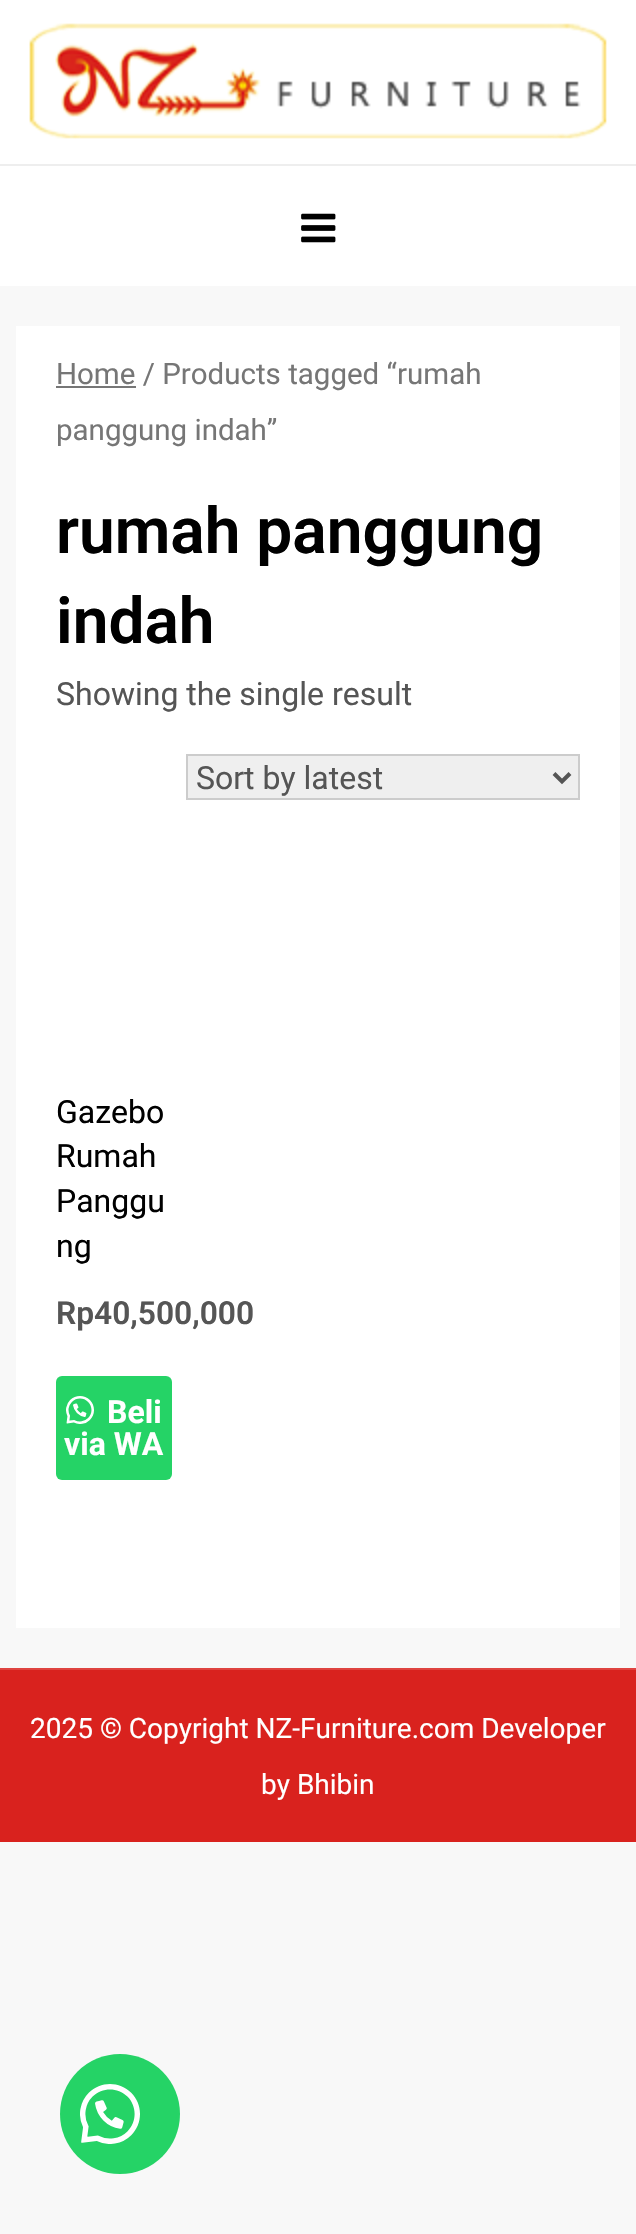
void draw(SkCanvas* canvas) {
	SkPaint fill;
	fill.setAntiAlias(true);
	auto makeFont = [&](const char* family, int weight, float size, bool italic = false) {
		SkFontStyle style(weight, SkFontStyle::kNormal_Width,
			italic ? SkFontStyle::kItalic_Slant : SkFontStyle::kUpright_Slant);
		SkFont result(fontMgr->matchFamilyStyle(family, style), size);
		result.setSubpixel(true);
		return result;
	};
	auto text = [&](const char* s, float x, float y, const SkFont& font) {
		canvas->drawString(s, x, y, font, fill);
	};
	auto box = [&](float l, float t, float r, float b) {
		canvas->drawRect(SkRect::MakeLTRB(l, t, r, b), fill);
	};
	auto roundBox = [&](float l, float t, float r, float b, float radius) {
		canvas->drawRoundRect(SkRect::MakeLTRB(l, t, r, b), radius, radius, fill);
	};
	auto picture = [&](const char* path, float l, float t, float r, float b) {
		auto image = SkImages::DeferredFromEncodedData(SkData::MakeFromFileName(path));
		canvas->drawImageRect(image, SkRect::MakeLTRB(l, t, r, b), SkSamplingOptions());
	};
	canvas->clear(0xFFF8F8F8);
	fill.setColor(0xFFFFFFFF);
	box(0, 0, 636, 286);
	picture("image0.png", 29, 23, 607, 139);
	fill.setColor(0xFFEEEEEE);
	box(0, 164, 636, 166);
	picture("image1.png", 301, 213, 336, 243);
	fill.setColor(0xFFFFFFFF);
	box(16, 326, 620, 1628);
	fill.setColor(0xFF767676);
	box(56, 386, 136, 388);
	fill.setColor(0xFFEFEFEF);
	canvas->drawRect(SkRect::MakeLTRB(187, 755, 579, 799), fill);
	fill.setStyle(SkPaint::kStroke_Style);
	fill.setStrokeWidth(2);
	fill.setColor(0xFFCCCCCC);
	canvas->drawRect(SkRect::MakeLTRB(187, 755, 579, 799), fill);
	fill.setStrokeWidth(4);
	fill.setColor(0xFF555555);
	canvas->drawPath(SkPathBuilder().moveTo(554, 773.5f).lineTo(562, 781.5f).lineTo(570, 773.5f).detach(), fill);
	fill.setStyle(SkPaint::kFill_Style);
	fill.setColor(0xFF25D366);
	roundBox(56, 1376, 172, 1480, 6);
	picture("image2.png", 66, 1396, 94, 1424);
	fill.setColor(0xFFD9221E);
	box(0, 1670, 636, 1842);
	fill.setColor(0xFFDF4340);
	box(0, 1668, 636, 1670);
	fill.setColor(0xFF25D366);
	canvas->drawCircle(120, 2114, 60, fill);
	picture("image3.png", 80, 2084, 140, 2144);
	auto font1 = makeFont("Roboto", 400, 29.5f);
	fill.setColor(0xFF767676);
	text("Home / Products tagged “rumah", 56, 384, font1);
	text("panggung indah”", 56, 440, font1);
	auto font2 = makeFont("Roboto", 600, 64);
	fill.setColor(0xFF000000);
	text("rumah panggung", 56, 553, font2);
	text("indah", 56, 643, font2);
	auto font3 = makeFont("Roboto", 400, 32);
	fill.setColor(0xFF555555);
	text("Showing the single result", 56, 705, font3);
	text("Sort by latest", 196, 789, font3);
	fill.setColor(0xFF000000);
	text("Gazebo", 56, 1123, font3);
	text("Rumah", 56, 1167, font3);
	text("Panggu", 56, 1212, font3);
	text("ng", 56, 1257, font3);
	auto font4 = makeFont("Roboto", 600, 31.75f);
	fill.setColor(0xFF555555);
	text("Rp40,500,000", 56, 1324, font4);
	auto font5 = makeFont("Roboto", 700, 32);
	fill.setColor(0xFFFFFFFF);
	text("Beli", 107, 1423, font5);
	text("via WA", 64, 1455, font5);
	auto font6 = makeFont("Roboto", 400, 28);
	text("2025 © Copyright NZ-Furniture.com Developer", 30, 1738, font6);
	text("by Bhibin", 261, 1794, font6);
}
